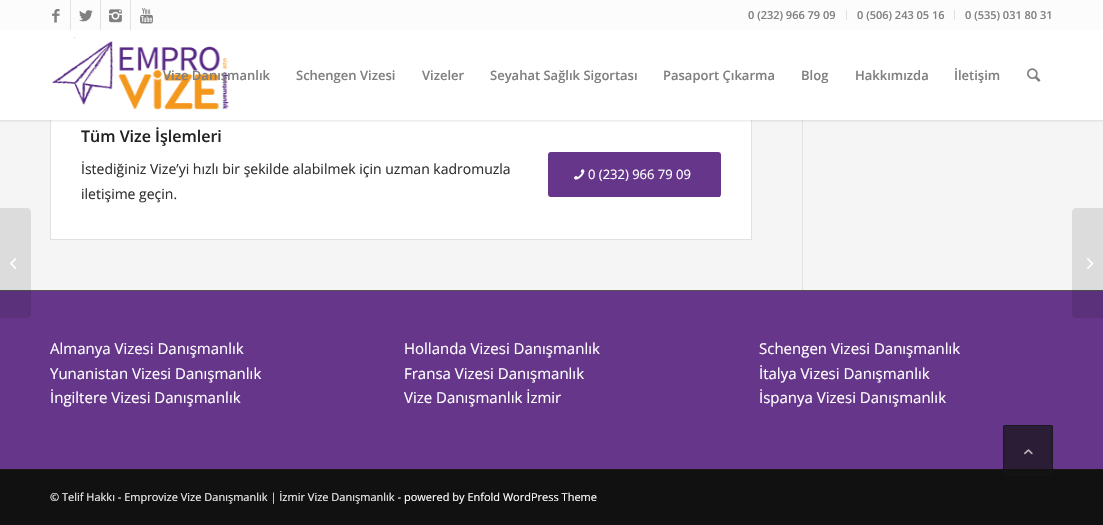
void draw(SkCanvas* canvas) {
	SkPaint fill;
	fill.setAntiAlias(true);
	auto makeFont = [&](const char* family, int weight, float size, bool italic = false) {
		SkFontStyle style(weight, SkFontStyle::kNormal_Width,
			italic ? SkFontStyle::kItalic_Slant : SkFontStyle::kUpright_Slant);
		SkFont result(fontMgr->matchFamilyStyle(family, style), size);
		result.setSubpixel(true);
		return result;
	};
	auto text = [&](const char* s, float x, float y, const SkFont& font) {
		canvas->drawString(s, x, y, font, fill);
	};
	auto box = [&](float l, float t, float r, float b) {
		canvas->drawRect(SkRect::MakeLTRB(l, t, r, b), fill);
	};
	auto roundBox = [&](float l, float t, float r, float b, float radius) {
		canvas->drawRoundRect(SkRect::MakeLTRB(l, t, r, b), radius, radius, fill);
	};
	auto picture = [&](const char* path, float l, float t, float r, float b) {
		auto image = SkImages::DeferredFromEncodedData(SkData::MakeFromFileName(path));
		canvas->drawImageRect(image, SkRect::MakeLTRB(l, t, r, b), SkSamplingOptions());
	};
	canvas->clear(0xFFF5F5F5);
	fill.setColor(0xFFE1E1E1);
	box(802, 120, 803, 290);
	fill.setColor(0xFFFFFFFF);
	box(51, 120, 751, 239);
	fill.setStyle(SkPaint::kStroke_Style);
	fill.setStrokeWidth(1);
	fill.setColor(0xFFE1E1E1);
	canvas->drawRect(SkRect::MakeLTRB(50.5f, 107.5f, 751.5f, 239.5f), fill);
	fill.setStyle(SkPaint::kFill_Style);
	fill.setColor(0x1A000000);
	fill.setMaskFilter(SkMaskFilter::MakeBlur(kNormal_SkBlurStyle, 1));
	canvas->drawRect(SkRect::MakeLTRB(-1, -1, 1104, 121), fill);
	fill.setMaskFilter(nullptr);
	fill.setColor(0xFFFCFCFC);
	box(0, 0, 1103, 30);
	fill.setColor(0xFFE1E1E1);
	box(70, 0, 71, 30);
	picture("image0.png", 52, 9, 60, 23);
	box(100, 0, 101, 30);
	picture("image1.png", 79, 10, 93, 22);
	box(130, 0, 131, 30);
	picture("image2.png", 109, 9, 122, 23);
	picture("image3.png", 140, 8, 153, 24);
	box(846, 10, 847, 20);
	box(954, 10, 955, 20);
	fill.setColor(0xFFFFFFFF);
	box(0, 30, 1103, 120);
	picture("image4.png", 52, 37, 229, 110);
	picture("image5.png", 1027, 68, 1041, 82);
	fill.setColor(0xFF66368A);
	box(0, 291, 1103, 469);
	fill.setColor(0xFF555555);
	box(0, 290, 1103, 291);
	fill.setColor(0x1A000000);
	canvas->drawPath(SkPathBuilder().moveTo(0, 208).lineTo(27, 208).cubicTo(29, 208, 31, 210, 31, 212).lineTo(31, 314).cubicTo(31, 316, 29, 318, 27, 318).lineTo(0, 318).close().detach(), fill);
	picture("image6.png", 10, 258, 17, 269);
	fill.setColor(0xFF66368A);
	roundBox(548, 152, 721, 197, 3);
	box(550, 196, 720, 197);
	picture("image7.png", 574, 169, 585, 180);
	fill.setColor(0xFF111111);
	box(0, 470, 1103, 525);
	fill.setColor(0xFF161616);
	box(0, 469, 1103, 470);
	fill.setColor(0x1A000000);
	canvas->drawPath(SkPathBuilder().moveTo(1076, 208).lineTo(1103, 208).lineTo(1103, 318).lineTo(1076, 318).cubicTo(1074, 318, 1072, 316, 1072, 314).lineTo(1072, 212).cubicTo(1072, 210, 1074, 208, 1076, 208).close().detach(), fill);
	picture("image8.png", 1087, 258, 1094, 269);
	fill.setColor(0xB3111111);
	roundBox(1003, 425, 1053, 475, 2);
	fill.setStyle(SkPaint::kStroke_Style);
	fill.setColor(0xB3161616);
	canvas->drawRoundRect(SkRect::MakeLTRB(1003.5f, 425.5f, 1052.5f, 474.5f), 1.5f, 1.5f, fill);
	picture("image9.png", 1024, 449, 1033, 455);
	auto font1 = makeFont("Open Sans", 600, 11);
	fill.setStyle(SkPaint::kFill_Style);
	fill.setColor(0xFF808080);
	text("0 (232) 966 79 09", 748, 19, font1);
	text("0 (506) 243 05 16", 857, 19, font1);
	text("0 (535) 031 80 31", 965, 19, font1);
	auto font2 = makeFont("Open Sans", 600, 13);
	text("Vize Danışmanlık", 163, 80, font2);
	text("Schengen Vizesi", 296, 80, font2);
	text("Vizeler", 422, 80, font2);
	text("Seyahat Sağlık Sigortası", 490, 80, font2);
	text("Pasaport Çıkarma", 663, 80, font2);
	text("Blog", 801, 80, font2);
	text("Hakkımızda", 855, 80, font2);
	text("İletişim", 954, 80, font2);
	auto font3 = makeFont("Open Sans", 600, 16);
	fill.setColor(0xFF222222);
	text("Tüm Vize İşlemleri", 81, 142, font3);
	auto font4 = makeFont("Open Sans", 400, 14);
	fill.setColor(0xFF303030);
	text("İstediğiniz Vize’yi hızlı bir şekilde alabilmek için uzman kadromuzla", 81, 174, font4);
	text("iletişime geçin.", 81, 199, font4);
	auto font5 = makeFont("Open Sans", 400, 13);
	fill.setColor(0xFFFFFFFF);
	text("0 (232) 966 79 09", 588, 179, font5);
	auto font6 = makeFont("Open Sans", 400, 15);
	text("Almanya Vizesi Danışmanlık", 50, 354, font6);
	text("Yunanistan Vizesi Danışmanlık", 50, 379, font6);
	text("İngiltere Vizesi Danışmanlık", 50, 403, font6);
	text("Hollanda Vizesi Danışmanlık", 404, 354, font6);
	text("Fransa Vizesi Danışmanlık", 404, 379, font6);
	text("Vize Danışmanlık İzmir", 404, 403, font6);
	text("Schengen Vizesi Danışmanlık", 759, 354, font6);
	text("İtalya Vizesi Danışmanlık", 759, 379, font6);
	text("İspanya Vizesi Danışmanlık", 759, 403, font6);
	auto font7 = makeFont("Open Sans", 400, 11);
	fill.setColor(0xFFEEEEEE);
	text("© Telif Hakkı - Emprovize Vize Danışmanlık | İzmir Vize Danışmanlık -", 50, 501, font7);
	fill.setColor(0xFFFFFFFF);
	text("powered by Enfold WordPress Theme", 404, 501, font7);
}
